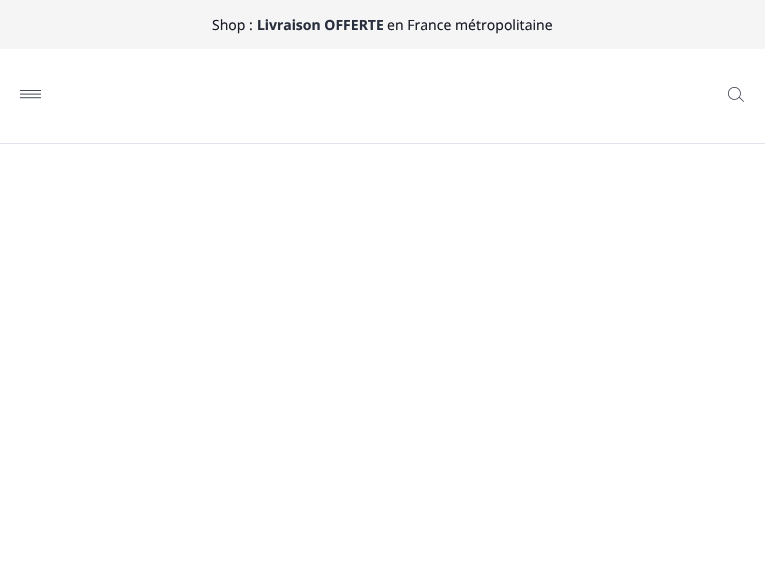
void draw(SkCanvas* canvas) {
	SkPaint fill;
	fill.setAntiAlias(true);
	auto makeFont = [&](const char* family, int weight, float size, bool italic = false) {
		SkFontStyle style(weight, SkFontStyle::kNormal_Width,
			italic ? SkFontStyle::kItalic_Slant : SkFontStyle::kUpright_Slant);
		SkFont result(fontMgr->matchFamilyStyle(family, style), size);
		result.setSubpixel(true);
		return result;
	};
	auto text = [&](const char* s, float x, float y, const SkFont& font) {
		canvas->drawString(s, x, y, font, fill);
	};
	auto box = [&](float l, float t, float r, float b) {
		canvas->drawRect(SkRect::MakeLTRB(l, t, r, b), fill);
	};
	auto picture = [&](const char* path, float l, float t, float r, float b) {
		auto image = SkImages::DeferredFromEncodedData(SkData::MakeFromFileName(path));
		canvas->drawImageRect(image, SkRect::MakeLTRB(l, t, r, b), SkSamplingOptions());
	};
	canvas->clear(0xFFFFFFFF);
	fill.setColor(0xFFF5F5F5);
	box(0, 0, 765, 49);
	fill.setColor(0xFFE0E3EB);
	box(0, 143, 765, 144);
	picture("image0.png", 20, 90, 41, 99);
	picture("image1.png", 728, 87, 744, 102);
	auto font1 = makeFont("Noto Sans", 400, 14);
	fill.setColor(0xFF1B1E28);
	text("Shop :", 212, 30, font1);
	auto font2 = makeFont("Noto Sans", 700, 14);
	fill.setColor(0xFF292F3D);
	text("Livraison OFFERTE", 257, 30, font2);
	fill.setColor(0xFF1B1E28);
	text("en France métropolitaine", 387, 30, font1);
}
